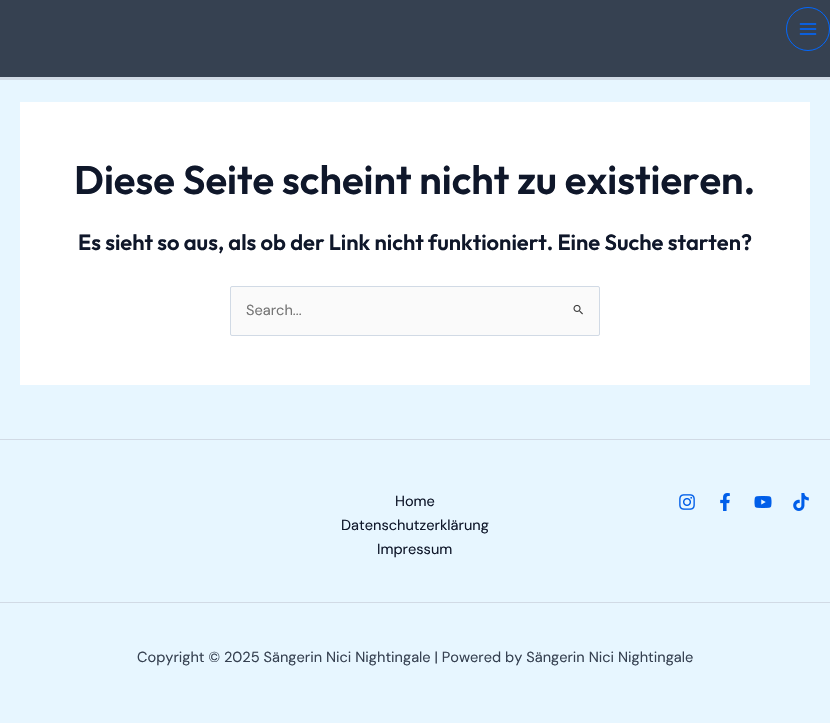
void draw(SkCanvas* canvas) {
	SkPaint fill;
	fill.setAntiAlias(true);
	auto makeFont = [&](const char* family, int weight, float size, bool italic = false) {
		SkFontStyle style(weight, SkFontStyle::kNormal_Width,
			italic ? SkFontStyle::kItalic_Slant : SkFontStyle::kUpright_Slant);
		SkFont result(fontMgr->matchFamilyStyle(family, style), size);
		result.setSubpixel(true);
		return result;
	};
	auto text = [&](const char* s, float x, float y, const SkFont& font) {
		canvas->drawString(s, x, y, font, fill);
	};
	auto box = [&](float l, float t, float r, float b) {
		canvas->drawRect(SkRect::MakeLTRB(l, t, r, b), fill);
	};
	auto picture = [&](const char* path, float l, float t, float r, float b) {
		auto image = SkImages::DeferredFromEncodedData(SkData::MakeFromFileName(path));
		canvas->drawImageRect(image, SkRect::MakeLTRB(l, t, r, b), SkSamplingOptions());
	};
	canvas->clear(0xFFE7F6FF);
	fill.setColor(0xFF364151);
	box(0, 0, 830, 77);
	fill.setColor(0xFFD1DAE5);
	box(0, 77, 830, 80);
	fill.setStyle(SkPaint::kStroke_Style);
	fill.setStrokeWidth(1);
	fill.setColor(0xFF0067FF);
	canvas->drawCircle(808, 29, 21.5f, fill);
	picture("image0.png", 799, 23, 817, 35);
	fill.setStyle(SkPaint::kFill_Style);
	fill.setColor(0xFFFFFFFF);
	box(20, 102, 810, 385);
	fill.setColor(0xFFFAFAFA);
	canvas->drawRoundRect(SkRect::MakeLTRB(230.5f, 286.5f, 599.5f, 335.5f), 1.5f, 1.5f, fill);
	fill.setStyle(SkPaint::kStroke_Style);
	fill.setColor(0xFFD1DAE5);
	canvas->drawRoundRect(SkRect::MakeLTRB(230.5f, 286.5f, 599.5f, 335.5f), 1.5f, 1.5f, fill);
	picture("image1.png", 573, 304, 583, 315);
	fill.setStyle(SkPaint::kFill_Style);
	box(0, 439, 830, 440);
	picture("image2.png", 679, 494, 695, 510);
	picture("image3.png", 720, 493, 730, 511);
	picture("image4.png", 754, 496, 772, 508);
	picture("image5.png", 793, 493, 809, 511);
	box(0, 602, 830, 603);
	auto font1 = makeFont("Outfit", 100, 40);
	fill.setColor(0xFF0F172A);
	text("Diese Seite scheint nicht zu existieren.", 74, 194, font1);
	auto font2 = makeFont("Outfit", 100, 21.9f);
	text("Es sieht so aus, als ob der Link nicht funktioniert. Eine Suche starten?", 78, 250, font2);
	auto font3 = makeFont("DM Sans", 400, 14.6f);
	fill.setColor(0xFF757575);
	text("Search...", 246, 315, font3);
	fill.setColor(0xFF0F172A);
	text("Home", 395, 506, font3);
	text("Datenschutzerklärung", 341, 530, font3);
	text("Impressum", 377, 554, font3);
	fill.setColor(0xFF364151);
	text("Copyright © 2025 Sängerin Nici Nightingale | Powered by Sängerin Nici Nightingale", 137, 662, font3);
}
